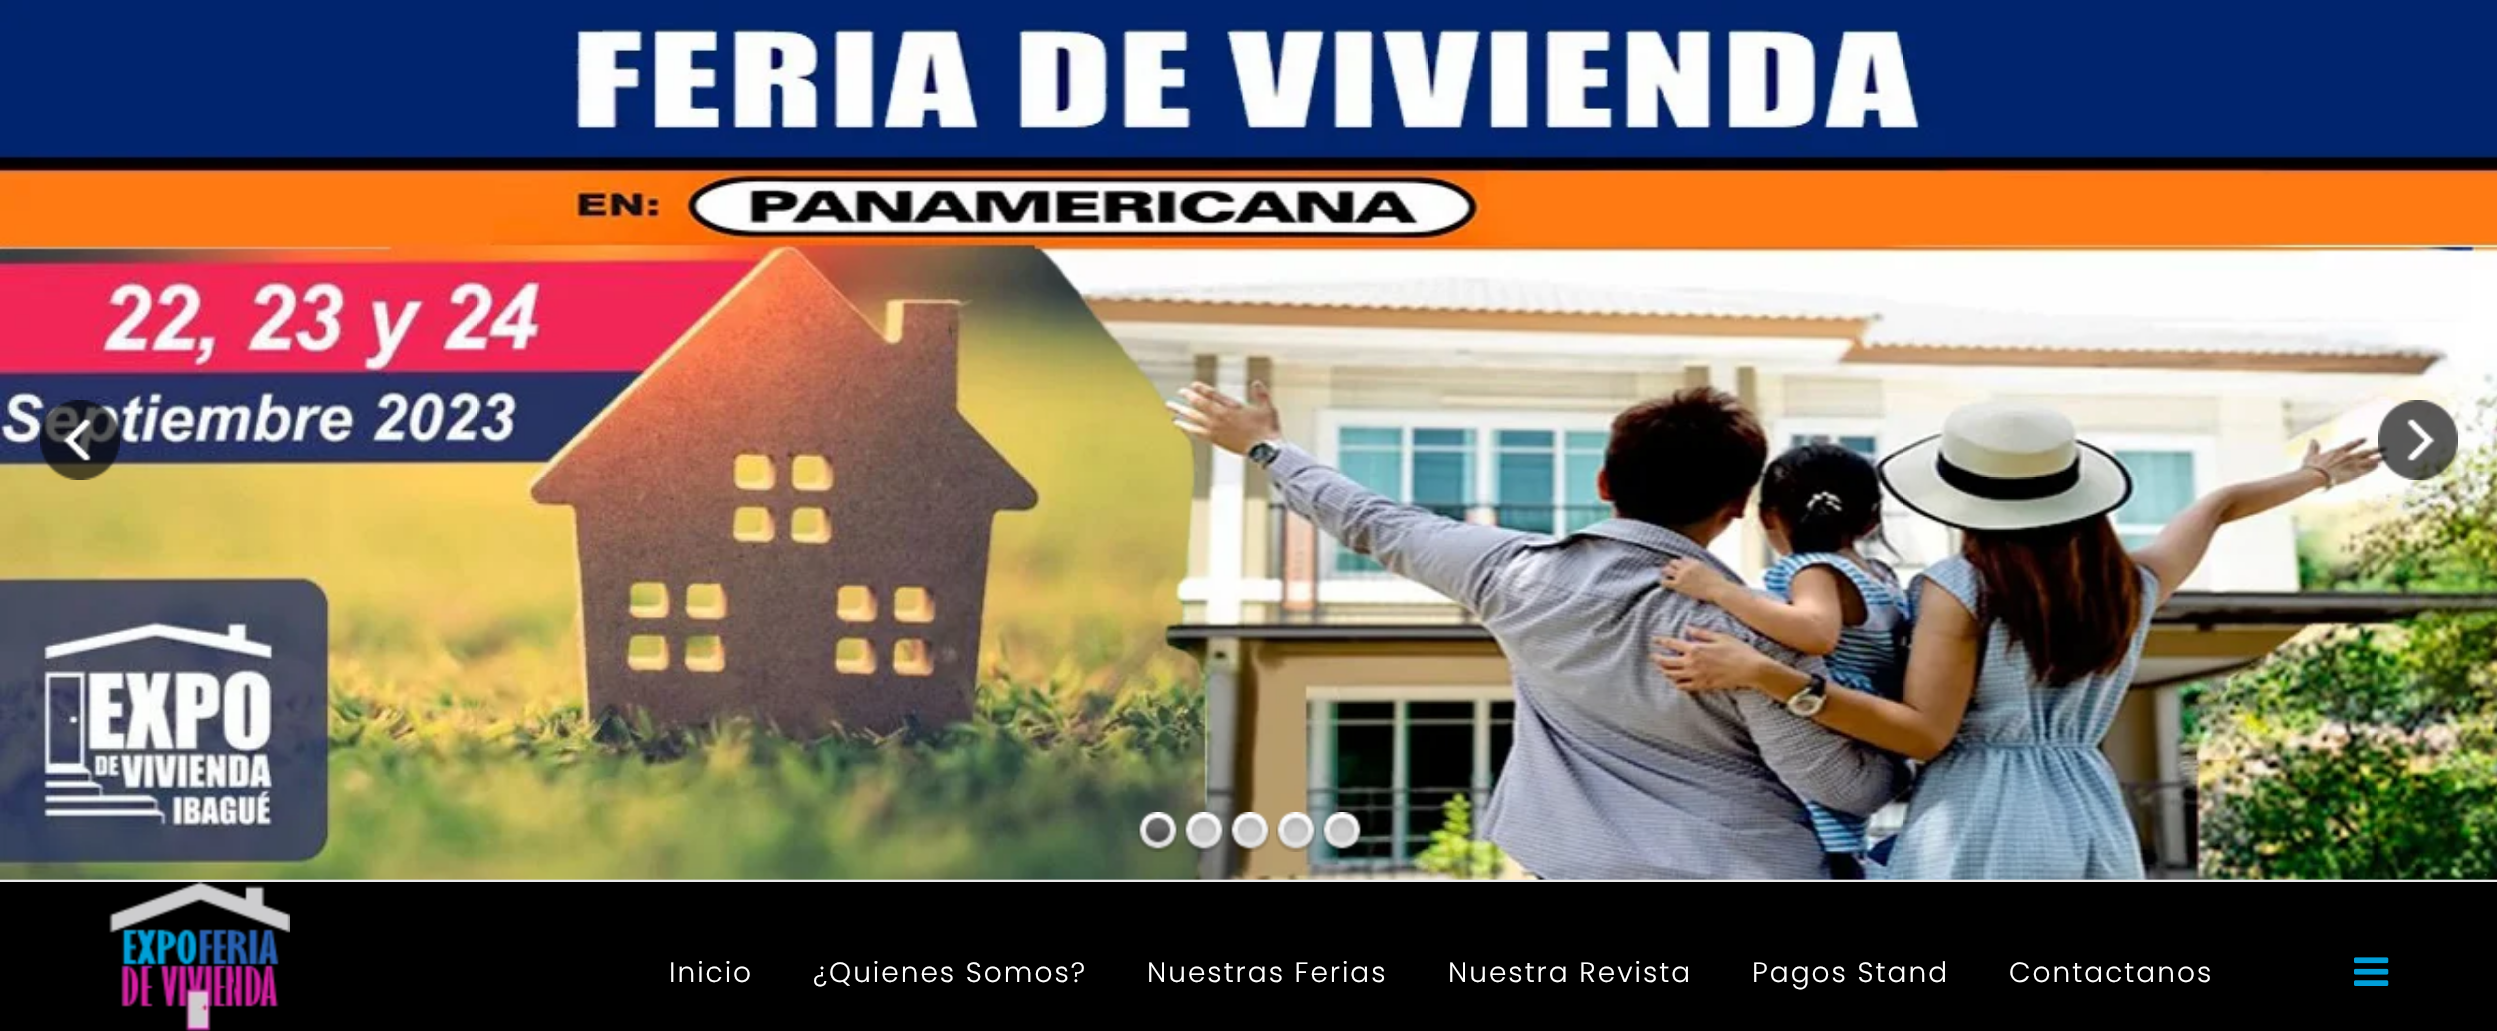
void draw(SkCanvas* canvas) {
	SkPaint fill;
	fill.setAntiAlias(true);
	auto makeFont = [&](const char* family, int weight, float size, bool italic = false) {
		SkFontStyle style(weight, SkFontStyle::kNormal_Width,
			italic ? SkFontStyle::kItalic_Slant : SkFontStyle::kUpright_Slant);
		SkFont result(fontMgr->matchFamilyStyle(family, style), size);
		result.setSubpixel(true);
		return result;
	};
	auto spacedText = [&](const char* s, float x, float y, const SkFont& font, const SkPaint& ink, float letter, float word) {
		std::vector<SkGlyphID> glyphs(font.countText(s, strlen(s), SkTextEncoding::kUTF8));
		std::vector<float> xs(glyphs.size());
		font.textToGlyphs(s, strlen(s), SkTextEncoding::kUTF8, glyphs);
		font.getXPos(glyphs, xs, x);
		float extra = 0;
		for (size_t i = 0; i < glyphs.size(); i++) {
			xs[i] += extra;
			extra += letter + word * (glyphs[i] == font.unicharToGlyph(' '));
		}
		canvas->drawTextBlob(SkTextBlob::MakeFromPosHGlyphs(glyphs, xs, y, font), 0, 0, ink);
	};
	auto box = [&](float l, float t, float r, float b) {
		canvas->drawRect(SkRect::MakeLTRB(l, t, r, b), fill);
	};
	auto picture = [&](const char* path, float l, float t, float r, float b) {
		auto image = SkImages::DeferredFromEncodedData(SkData::MakeFromFileName(path));
		canvas->drawImageRect(image, SkRect::MakeLTRB(l, t, r, b), SkSamplingOptions());
	};
	canvas->clear(0xFFE9E9E9);
	picture("image0.png", 0, 0, 2497, 880);
	picture("image1.png", 40, 400, 120, 480);
	picture("image2.png", 2378, 400, 2458, 480);
	picture("image3.png", 1138, 812, 1178, 852);
	picture("image4.png", 1184, 812, 1224, 852);
	picture("image5.png", 1230, 812, 1270, 852);
	picture("image6.png", 1276, 812, 1316, 852);
	picture("image7.png", 1322, 812, 1362, 851);
	fill.setColor(0xFF000000);
	box(0, 882, 2497, 1031);
	picture("image8.png", 109, 882, 290, 1031);
	picture("image9.png", 2354, 957, 2389, 986);
	auto font1 = makeFont("Poppins", 300, 28);
	fill.setColor(0xFFFFFFFF);
	spacedText("Inicio", 669, 982, font1, fill, 2, 0);
	spacedText("¿Quienes Somos?", 813, 982, font1, fill, 2, 0);
	spacedText("Nuestras Ferias", 1147, 982, font1, fill, 2, 0);
	spacedText("Nuestra Revista", 1448, 982, font1, fill, 2, 0);
	spacedText("Pagos Stand", 1752, 982, font1, fill, 2, 0);
	spacedText("Contactanos", 2009, 982, font1, fill, 2, 0);
}
